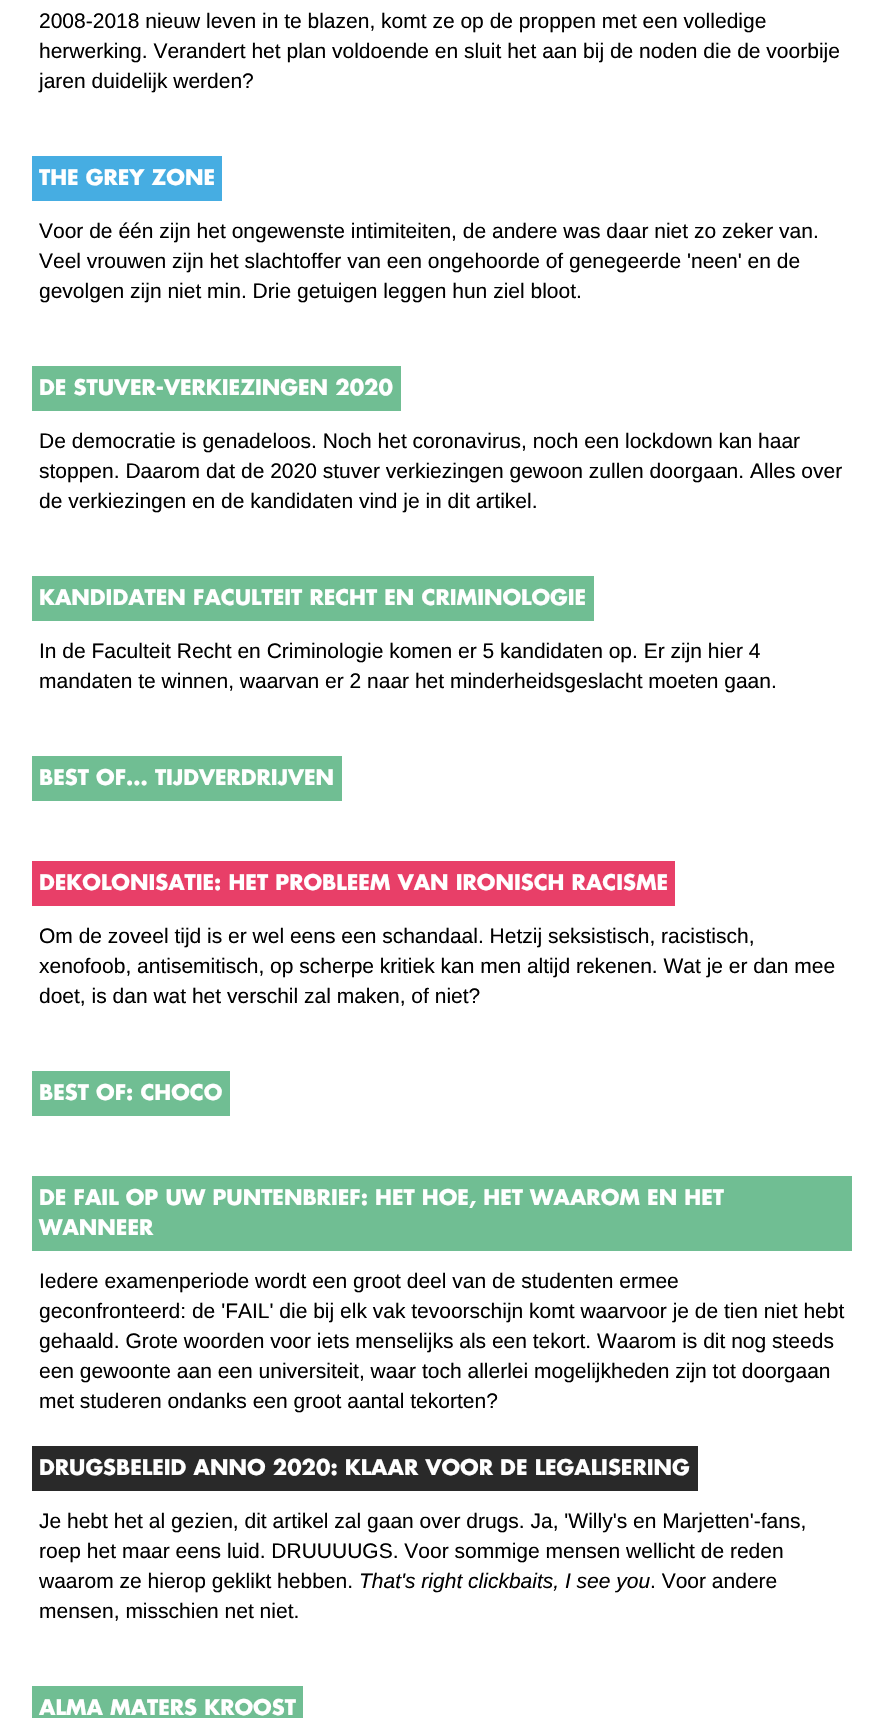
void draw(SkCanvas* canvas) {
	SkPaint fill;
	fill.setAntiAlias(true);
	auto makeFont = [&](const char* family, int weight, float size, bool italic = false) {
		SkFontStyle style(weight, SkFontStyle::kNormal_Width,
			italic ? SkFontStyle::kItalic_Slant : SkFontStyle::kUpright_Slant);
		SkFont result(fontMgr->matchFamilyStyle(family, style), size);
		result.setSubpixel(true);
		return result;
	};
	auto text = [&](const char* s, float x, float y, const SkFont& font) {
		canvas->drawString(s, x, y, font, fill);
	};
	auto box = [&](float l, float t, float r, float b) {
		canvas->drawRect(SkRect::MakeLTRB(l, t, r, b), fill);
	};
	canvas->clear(0xFFFFFFFF);
	fill.setColor(0xFF46ADE2);
	box(32, 156, 222, 201);
	fill.setColor(0xFF70BE93);
	box(32, 366, 401, 411);
	box(32, 576, 594, 621);
	box(32, 756, 342, 801);
	fill.setColor(0xFFE83F68);
	box(32, 861, 675, 906);
	fill.setColor(0xFF70BE93);
	box(32, 1071, 230, 1116);
	box(32, 1176, 852, 1251);
	fill.setColor(0xFF292929);
	box(32, 1446, 698, 1491);
	fill.setColor(0xFF70BE93);
	box(32, 1686, 303, 1718);
	auto font1 = makeFont("Liberation Sans", 400, 21);
	fill.setColor(0xFF000000);
	text("2008-2018 nieuw leven in te blazen, komt ze op de proppen met een volledige", 39, 28, font1);
	text("herwerking. Verandert het plan voldoende en sluit het aan bij de noden die de voorbije", 39, 58, font1);
	text("jaren duidelijk werden?", 39, 88, font1);
	auto font2 = makeFont("Futura", 700, 21);
	fill.setColor(0xFFFFFFFF);
	text("THE GREY ZONE", 39, 185, font2);
	fill.setColor(0xFF000000);
	text("Voor de één zijn het ongewenste intimiteiten, de andere was daar niet zo zeker van.", 39, 238, font1);
	text("Veel vrouwen zijn het slachtoffer van een ongehoorde of genegeerde 'neen' en de", 39, 268, font1);
	text("gevolgen zijn niet min. Drie getuigen leggen hun ziel bloot.", 39, 298, font1);
	fill.setColor(0xFFFFFFFF);
	text("DE STUVER-VERKIEZINGEN 2020", 39, 395, font2);
	fill.setColor(0xFF000000);
	text("De democratie is genadeloos. Noch het coronavirus, noch een lockdown kan haar", 39, 448, font1);
	text("stoppen. Daarom dat de 2020 stuver verkiezingen gewoon zullen doorgaan. Alles over", 39, 478, font1);
	text("de verkiezingen en de kandidaten vind je in dit artikel.", 39, 508, font1);
	fill.setColor(0xFFFFFFFF);
	text("KANDIDATEN FACULTEIT RECHT EN CRIMINOLOGIE", 39, 605, font2);
	fill.setColor(0xFF000000);
	text("In de Faculteit Recht en Criminologie komen er 5 kandidaten op. Er zijn hier 4", 39, 658, font1);
	text("mandaten te winnen, waarvan er 2 naar het minderheidsgeslacht moeten gaan.", 39, 688, font1);
	fill.setColor(0xFFFFFFFF);
	text("BEST OF... TIJDVERDRIJVEN", 39, 785, font2);
	text("DEKOLONISATIE: HET PROBLEEM VAN IRONISCH RACISME", 39, 890, font2);
	fill.setColor(0xFF000000);
	text("Om de zoveel tijd is er wel eens een schandaal. Hetzij seksistisch, racistisch,", 39, 943, font1);
	text("xenofoob, antisemitisch, op scherpe kritiek kan men altijd rekenen. Wat je er dan mee", 39, 973, font1);
	text("doet, is dan wat het verschil zal maken, of niet?", 39, 1003, font1);
	fill.setColor(0xFFFFFFFF);
	text("BEST OF: CHOCO", 39, 1100, font2);
	text("DE FAIL OP UW PUNTENBRIEF: HET HOE, HET WAAROM EN HET", 39, 1205, font2);
	text("WANNEER", 39, 1235, font2);
	fill.setColor(0xFF000000);
	text("Iedere examenperiode wordt een groot deel van de studenten ermee", 39, 1288, font1);
	text("geconfronteerd: de 'FAIL' die bij elk vak tevoorschijn komt waarvoor je de tien niet hebt", 39, 1318, font1);
	text("gehaald. Grote woorden voor iets menselijks als een tekort. Waarom is dit nog steeds", 39, 1348, font1);
	text("een gewoonte aan een universiteit, waar toch allerlei mogelijkheden zijn tot doorgaan", 39, 1378, font1);
	text("met studeren ondanks een groot aantal tekorten?", 39, 1408, font1);
	fill.setColor(0xFFFFFFFF);
	text("DRUGSBELEID ANNO 2020: KLAAR VOOR DE LEGALISERING", 39, 1475, font2);
	fill.setColor(0xFF000000);
	text("Je hebt het al gezien, dit artikel zal gaan over drugs. Ja, 'Willy's en Marjetten'-fans,", 39, 1528, font1);
	text("roep het maar eens luid. DRUUUUGS. Voor sommige mensen wellicht de reden", 39, 1558, font1);
	text("waarom ze hierop geklikt hebben.", 39, 1588, font1);
	auto font3 = makeFont("Liberation Sans", 400, 21, true);
	text("That's right clickbaits, I see you", 359, 1588, font3);
	text(". Voor andere", 650, 1588, font1);
	text("mensen, misschien net niet.", 39, 1618, font1);
	fill.setColor(0xFFFFFFFF);
	text("ALMA MATERS KROOST", 39, 1715, font2);
}
